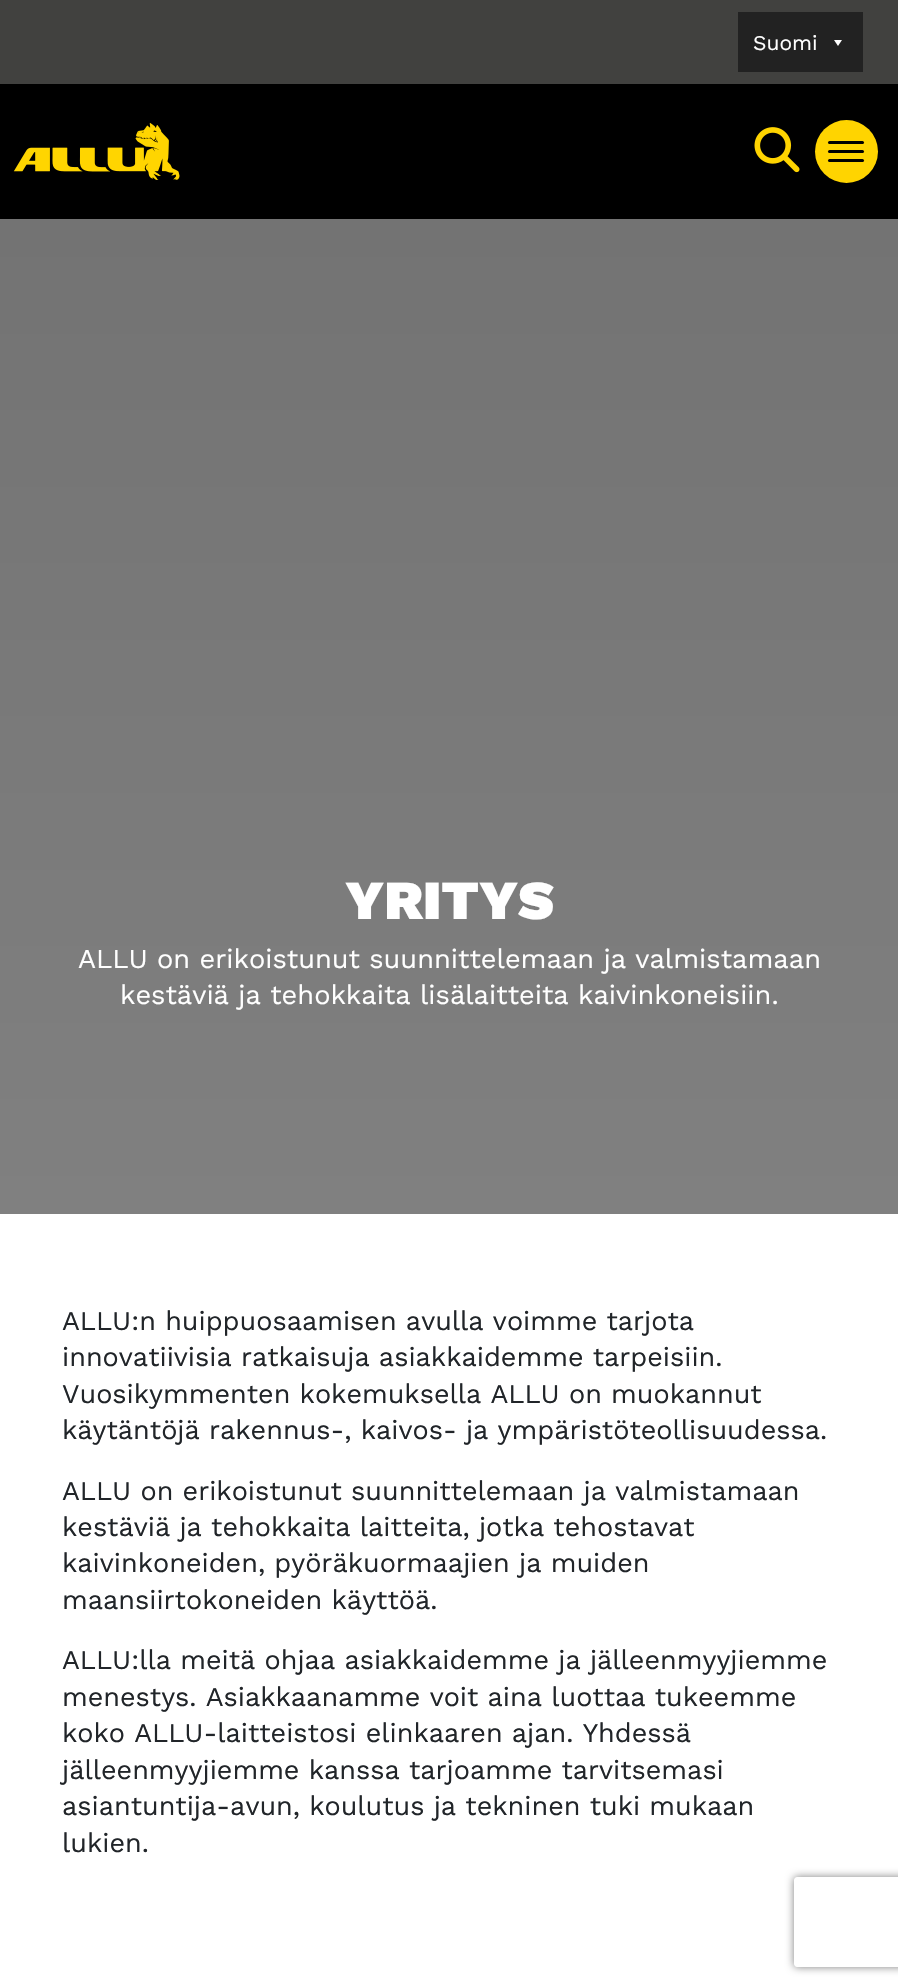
void draw(SkCanvas* canvas) {
	SkPaint fill;
	fill.setAntiAlias(true);
	auto makeFont = [&](const char* family, int weight, float size, bool italic = false) {
		SkFontStyle style(weight, SkFontStyle::kNormal_Width,
			italic ? SkFontStyle::kItalic_Slant : SkFontStyle::kUpright_Slant);
		SkFont result(fontMgr->matchFamilyStyle(family, style), size);
		result.setSubpixel(true);
		return result;
	};
	auto text = [&](const char* s, float x, float y, const SkFont& font) {
		canvas->drawString(s, x, y, font, fill);
	};
	auto box = [&](float l, float t, float r, float b) {
		canvas->drawRect(SkRect::MakeLTRB(l, t, r, b), fill);
	};
	auto roundBox = [&](float l, float t, float r, float b, float radius) {
		canvas->drawRoundRect(SkRect::MakeLTRB(l, t, r, b), radius, radius, fill);
	};
	auto picture = [&](const char* path, float l, float t, float r, float b) {
		auto image = SkImages::DeferredFromEncodedData(SkData::MakeFromFileName(path));
		canvas->drawImageRect(image, SkRect::MakeLTRB(l, t, r, b), SkSamplingOptions());
	};
	canvas->clear(0xFFFFFFFF);
	fill.setColor(0xFF41413F);
	box(0, 0, 898, 84);
	fill.setColor(0xFF222222);
	box(738, 12, 863, 72);
	fill.setColor(0xFFFFFFFF);
	canvas->drawPath(SkPathBuilder().moveTo(842, 40).lineTo(838, 46).lineTo(834, 40).close().detach(), fill);
	fill.setColor(0xFF000000);
	box(0, 84, 898, 219);
	picture("image0.png", 13, 122, 180, 180);
	picture("image1.png", 754, 127, 800, 173);
	fill.setColor(0xFFFFD400);
	canvas->drawCircle(846.5f, 151.5f, 31.5f, fill);
	fill.setColor(0xFF000000);
	roundBox(828, 141, 864, 144, 1.5f);
	roundBox(828, 150, 864, 153, 1.5f);
	roundBox(828, 159, 864, 162, 1.5f);
	{
		const SkColor colors[] = {0xFF737373, 0xFF808080};
		const float stops[] = {0, 1};
		const SkPoint ends[] = {{449, 219}, {449, 1214}};
		fill.setShader(SkGradientShader::MakeLinear(ends, colors, stops, 2, SkTileMode::kClamp));
		fill.setAlpha(255);
	}
	box(0, 219, 898, 1214);
	canvas->save();
	canvas->clipPath(SkPathBuilder(SkPathFillType::kEvenOdd).moveTo(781, 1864).lineTo(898, 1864).lineTo(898, 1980).lineTo(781, 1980).close().moveTo(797, 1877).lineTo(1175, 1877).cubicTo(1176.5f, 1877, 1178, 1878.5f, 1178, 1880).lineTo(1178, 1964).cubicTo(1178, 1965.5f, 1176.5f, 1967, 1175, 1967).lineTo(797, 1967).cubicTo(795.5f, 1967, 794, 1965.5f, 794, 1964).lineTo(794, 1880).cubicTo(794, 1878.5f, 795.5f, 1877, 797, 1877).close().detach(), true);
	fill.setShader(nullptr);
	fill.setColor(0xFF808080);
	fill.setMaskFilter(SkMaskFilter::MakeBlur(kNormal_SkBlurStyle, 4));
	canvas->drawRoundRect(SkRect::MakeLTRB(794, 1877, 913, 1967), 3, 3, fill);
	fill.setMaskFilter(nullptr);
	canvas->restore();
	auto font1 = makeFont("Work Sans", 400, 21);
	fill.setColor(0xFFFFFFFF);
	text("Suomi", 753, 50, font1);
	auto font2 = makeFont("Work Sans", 900, 55);
	text("YRITYS", 345, 919, font2);
	auto font3 = makeFont("Work Sans", 400, 27.2f);
	text("ALLU on erikoistunut suunnittelemaan ja valmistamaan", 78, 968, font3);
	text("kestäviä ja tehokkaita lisälaitteita kaivinkoneisiin.", 120, 1004, font3);
	auto font4 = makeFont("Work Sans", 400, 27);
	fill.setColor(0xFF212529);
	text("ALLU:n huippuosaamisen avulla voimme tarjota", 62, 1330, font4);
	text("innovatiivisia ratkaisuja asiakkaidemme tarpeisiin.", 62, 1366, font4);
	text("Vuosikymmenten kokemuksella ALLU on muokannut", 62, 1403, font4);
	text("käytäntöjä rakennus-, kaivos- ja ympäristöteollisuudessa.", 62, 1439, font4);
	text("ALLU on erikoistunut suunnittelemaan ja valmistamaan", 62, 1500, font4);
	text("kestäviä ja tehokkaita laitteita, jotka tehostavat", 62, 1536, font4);
	text("kaivinkoneiden, pyöräkuormaajien ja muiden", 62, 1572, font4);
	text("maansiirtokoneiden käyttöä.", 62, 1609, font4);
	text("ALLU:lla meitä ohjaa asiakkaidemme ja jälleenmyyjiemme", 62, 1669, font4);
	text("menestys. Asiakkaanamme voit aina luottaa tukeemme", 62, 1706, font4);
	text("koko ALLU-laitteistosi elinkaaren ajan. Yhdessä", 62, 1742, font4);
	text("jälleenmyyjiemme kanssa tarjoamme tarvitsemasi", 62, 1779, font4);
	text("asiantuntija-avun, koulutus ja tekninen tuki mukaan", 62, 1815, font4);
	text("lukien.", 62, 1852, font4);
}
